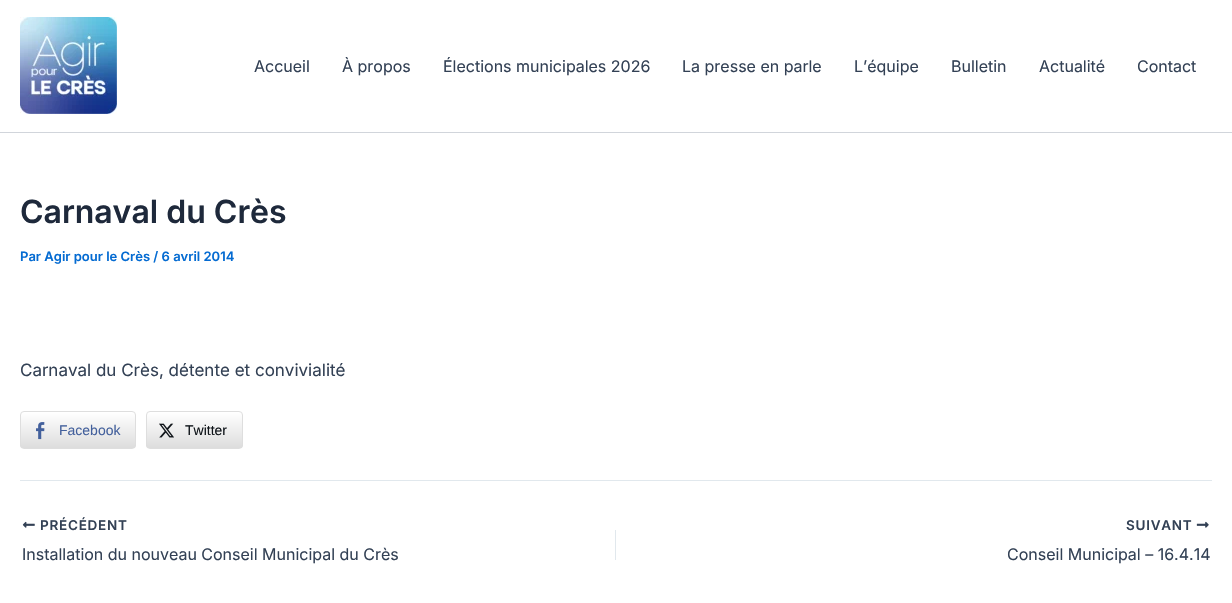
void draw(SkCanvas* canvas) {
	SkPaint fill;
	fill.setAntiAlias(true);
	auto makeFont = [&](const char* family, int weight, float size, bool italic = false) {
		SkFontStyle style(weight, SkFontStyle::kNormal_Width,
			italic ? SkFontStyle::kItalic_Slant : SkFontStyle::kUpright_Slant);
		SkFont result(fontMgr->matchFamilyStyle(family, style), size);
		result.setSubpixel(true);
		return result;
	};
	auto text = [&](const char* s, float x, float y, const SkFont& font) {
		canvas->drawString(s, x, y, font, fill);
	};
	auto spacedText = [&](const char* s, float x, float y, const SkFont& font, const SkPaint& ink, float letter, float word) {
		std::vector<SkGlyphID> glyphs(font.countText(s, strlen(s), SkTextEncoding::kUTF8));
		std::vector<float> xs(glyphs.size());
		font.textToGlyphs(s, strlen(s), SkTextEncoding::kUTF8, glyphs);
		font.getXPos(glyphs, xs, x);
		float extra = 0;
		for (size_t i = 0; i < glyphs.size(); i++) {
			xs[i] += extra;
			extra += letter + word * (glyphs[i] == font.unicharToGlyph(' '));
		}
		canvas->drawTextBlob(SkTextBlob::MakeFromPosHGlyphs(glyphs, xs, y, font), 0, 0, ink);
	};
	auto box = [&](float l, float t, float r, float b) {
		canvas->drawRect(SkRect::MakeLTRB(l, t, r, b), fill);
	};
	auto picture = [&](const char* path, float l, float t, float r, float b) {
		auto image = SkImages::DeferredFromEncodedData(SkData::MakeFromFileName(path));
		canvas->drawImageRect(image, SkRect::MakeLTRB(l, t, r, b), SkSamplingOptions());
	};
	canvas->clear(0xFFFFFFFF);
	fill.setColor(0xFFD1D5DB);
	box(0, 132, 1232, 133);
	picture("image0.png", 20, 17, 117, 114);
	canvas->save();
	canvas->clipPath(SkPathBuilder().moveTo(24, 411).lineTo(132, 411).cubicTo(134, 411, 136, 413, 136, 415).lineTo(136, 445).cubicTo(136, 447, 134, 449, 132, 449).lineTo(24, 449).cubicTo(22, 449, 20, 447, 20, 445).lineTo(20, 415).cubicTo(20, 413, 22, 411, 24, 411).close().detach(), true);
	{
		const SkColor colors[] = {0xFFFFFFFF, 0xFFDDDDDD};
		const float stops[] = {0, 1};
		const SkPoint ends[] = {{78, 412}, {78, 448}};
		fill.setShader(SkGradientShader::MakeLinear(ends, colors, stops, 2, SkTileMode::kClamp));
		fill.setAlpha(255);
	}
	box(20, 412, 136, 448);
	canvas->restore();
	fill.setStyle(SkPaint::kStroke_Style);
	fill.setStrokeWidth(1);
	fill.setShader(nullptr);
	fill.setColor(0xFFDEDEDE);
	canvas->drawRoundRect(SkRect::MakeLTRB(20.5f, 411.5f, 135.5f, 448.5f), 3.5f, 3.5f, fill);
	picture("image1.png", 36, 422, 45, 440);
	canvas->save();
	canvas->clipPath(SkPathBuilder().moveTo(150, 411).lineTo(239, 411).cubicTo(241, 411, 243, 413, 243, 415).lineTo(243, 445).cubicTo(243, 447, 241, 449, 239, 449).lineTo(150, 449).cubicTo(148, 449, 146, 447, 146, 445).lineTo(146, 415).cubicTo(146, 413, 148, 411, 150, 411).close().detach(), true);
	fill.setStyle(SkPaint::kFill_Style);
	{
		const SkColor colors[] = {0xFFFFFFFF, 0xFFDDDDDD};
		const float stops[] = {0, 1};
		const SkPoint ends[] = {{195, 412}, {195, 448}};
		fill.setShader(SkGradientShader::MakeLinear(ends, colors, stops, 2, SkTileMode::kClamp));
		fill.setAlpha(255);
	}
	box(146, 412, 243, 448);
	canvas->restore();
	fill.setStyle(SkPaint::kStroke_Style);
	fill.setShader(nullptr);
	fill.setColor(0xFFDEDEDE);
	canvas->drawRoundRect(SkRect::MakeLTRB(146.5f, 411.5f, 242.5f, 448.5f), 3.5f, 3.5f, fill);
	picture("image2.png", 159, 423, 174, 438);
	fill.setStyle(SkPaint::kFill_Style);
	fill.setColor(0xFFE1E8ED);
	box(20, 480, 1212, 481);
	picture("image3.png", 22, 521, 35, 528);
	box(615, 530, 616, 560);
	picture("image4.png", 1196, 521, 1209, 528);
	auto font1 = makeFont("Inter", 400, 16);
	fill.setColor(0xFF334155);
	text("Accueil", 254, 72, font1);
	text("À propos", 342, 72, font1);
	text("Élections municipales 2026", 443, 72, font1);
	text("La presse en parle", 682, 72, font1);
	text("L’équipe", 854, 72, font1);
	text("Bulletin", 951, 72, font1);
	text("Actualité", 1039, 72, font1);
	text("Contact", 1137, 72, font1);
	auto font2 = makeFont("Inter", 600, 32);
	fill.setColor(0xFF1E293B);
	text("Carnaval du Crès", 20, 223, font2);
	auto font3 = makeFont("Inter", 600, 13);
	fill.setColor(0xFF046BD2);
	text("Par Agir pour le Crès / 6 avril 2014", 20, 261, font3);
	auto font4 = makeFont("Inter", 400, 17);
	fill.setColor(0xFF334155);
	text("Carnaval du Crès, détente et convivialité", 20, 376, font4);
	auto font5 = makeFont("Liberation Sans", 400, 14);
	fill.setColor(0xFF43609C);
	text("Facebook", 59, 435, font5);
	fill.setColor(0xFF0F1419);
	text("Twitter", 185, 435, font5);
	auto font6 = makeFont("Inter", 600, 13.5f);
	fill.setColor(0xFF334155);
	spacedText("PRÉCÉDENT", 40, 530, font6, fill, 0.75f, 0);
	text("Installation du nouveau Conseil Municipal du Crès", 22, 560, font1);
	spacedText("SUIVANT", 1126, 530, font6, fill, 0.75f, 0);
	text("Conseil Municipal – 16.4.14", 1007, 560, font1);
}
